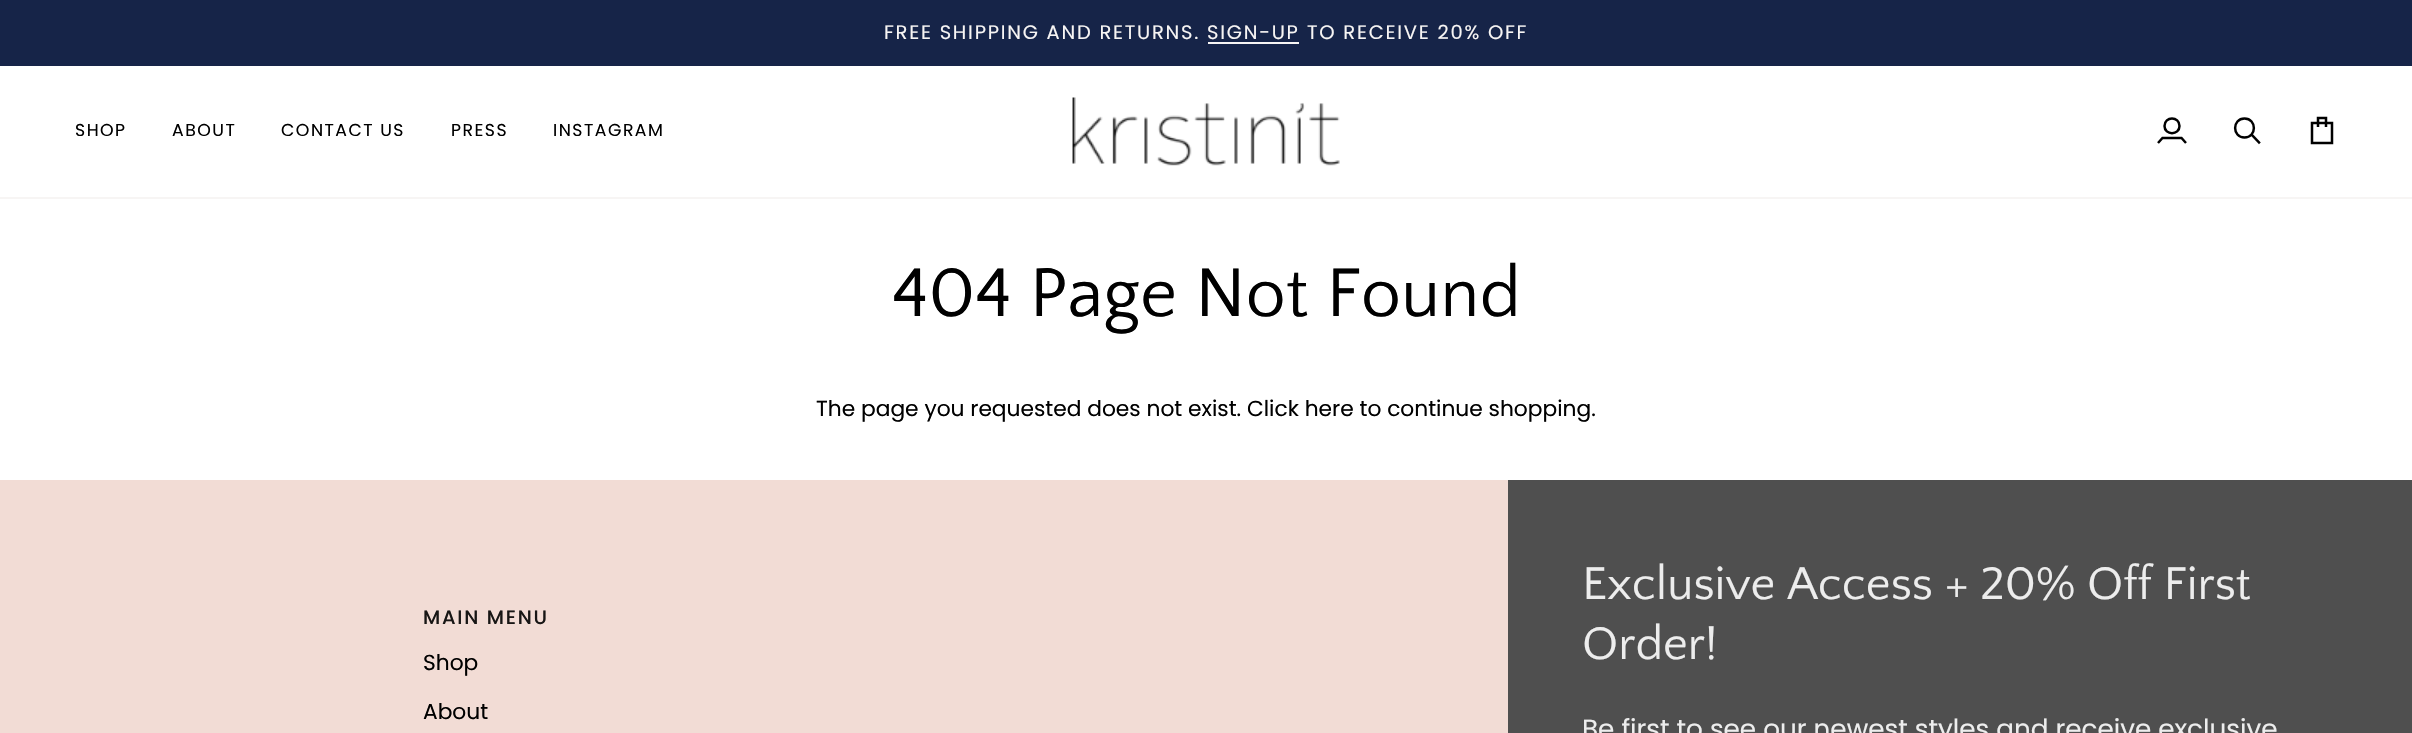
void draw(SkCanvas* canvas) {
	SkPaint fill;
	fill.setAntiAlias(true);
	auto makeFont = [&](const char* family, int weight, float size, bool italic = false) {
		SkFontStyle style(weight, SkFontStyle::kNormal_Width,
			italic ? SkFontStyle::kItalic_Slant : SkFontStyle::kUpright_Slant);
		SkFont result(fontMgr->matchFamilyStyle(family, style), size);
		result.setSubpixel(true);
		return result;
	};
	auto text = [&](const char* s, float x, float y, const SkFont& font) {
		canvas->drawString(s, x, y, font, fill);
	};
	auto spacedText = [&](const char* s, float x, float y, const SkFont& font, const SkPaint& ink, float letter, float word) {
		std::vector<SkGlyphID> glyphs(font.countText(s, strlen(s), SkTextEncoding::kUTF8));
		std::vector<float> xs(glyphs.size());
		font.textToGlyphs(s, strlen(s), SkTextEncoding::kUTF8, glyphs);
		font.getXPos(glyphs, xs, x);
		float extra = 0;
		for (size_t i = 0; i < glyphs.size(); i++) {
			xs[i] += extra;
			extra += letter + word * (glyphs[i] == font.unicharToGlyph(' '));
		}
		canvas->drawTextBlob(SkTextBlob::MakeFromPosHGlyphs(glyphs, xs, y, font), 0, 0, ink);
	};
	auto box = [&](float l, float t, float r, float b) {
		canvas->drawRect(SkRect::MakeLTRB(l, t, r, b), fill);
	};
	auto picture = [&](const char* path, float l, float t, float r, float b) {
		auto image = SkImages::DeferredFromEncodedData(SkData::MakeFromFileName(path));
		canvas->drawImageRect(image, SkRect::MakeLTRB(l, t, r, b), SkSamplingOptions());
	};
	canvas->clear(0xFFFFFFFF);
	fill.setColor(0xFF162448);
	box(0, 0, 2412, 66);
	fill.setColor(0xFFF7F5F4);
	box(1208, 42, 1299, 44);
	box(0, 197, 2412, 199);
	picture("image0.png", 1072, 97, 1340, 166);
	fill.setStyle(SkPaint::kStroke_Style);
	fill.setStrokeWidth(2.5f);
	fill.setColor(0xFF000000);
	canvas->drawPath(SkPathBuilder().moveTo(2158, 143).lineTo(2162.5f, 138).lineTo(2181.5f, 138).lineTo(2186, 143).moveTo(2179.5f, 126).cubicTo(2179.5f, 135.5f, 2164.5f, 135.5f, 2164.5f, 126).cubicTo(2164.5f, 116, 2179.5f, 116, 2179.5f, 126).close().detach(), fill);
	fill.setStrokeCap(SkPaint::kSquare_Cap);
	canvas->drawPath(SkPathBuilder().moveTo(2244.5f, 137.5f).cubicTo(2257, 137.5f, 2257, 118.5f, 2244.5f, 118.5f).cubicTo(2232, 118.5f, 2232, 137.5f, 2244.5f, 137.5f).close().moveTo(2259, 142.5f).lineTo(2252, 135).detach(), fill);
	fill.setStrokeCap(SkPaint::kButt_Cap);
	canvas->drawPath(SkPathBuilder().moveTo(2312, 123).lineTo(2332, 123).lineTo(2332, 143).lineTo(2312, 143).close().moveTo(2318, 127).lineTo(2318, 118).lineTo(2326, 118).lineTo(2326, 127).detach(), fill);
	fill.setStyle(SkPaint::kFill_Style);
	fill.setColor(0xFFF2DCD5);
	box(0, 480, 1508, 733);
	fill.setColor(0xFF4F4F4F);
	box(1508, 480, 2412, 733);
	auto font1 = makeFont("Poppins", 400, 19.5f);
	fill.setColor(0xFFF7F5F4);
	spacedText("FREE SHIPPING AND RETURNS. SIGN-UP", 884, 39, font1, fill, 1.75f, 0);
	spacedText("TO RECEIVE 20% OFF", 1307, 39, font1, fill, 1.75f, 0);
	auto font2 = makeFont("Poppins", 400, 17.25f);
	fill.setColor(0xFF000000);
	spacedText("SHOP", 75, 136, font2, fill, 1.5f, 0);
	spacedText("ABOUT", 172, 136, font2, fill, 1.5f, 0);
	spacedText("CONTACT US", 281, 136, font2, fill, 1.5f, 0);
	spacedText("PRESS", 451, 136, font2, fill, 1.5f, 0);
	spacedText("INSTAGRAM", 553, 136, font2, fill, 1.5f, 0);
	auto font3 = makeFont("Quattrocento Sans", 400, 72);
	text("404 Page Not Found", 892, 316, font3);
	auto font4 = makeFont("Poppins", 400, 21.75f);
	text("The page you requested does not exist. Click here to continue shopping.", 816, 416, font4);
	auto font5 = makeFont("Poppins", 500, 19.5f);
	fill.setColor(0xFF181615);
	spacedText("MAIN MENU", 423, 624, font5, fill, 1.75f, 0);
	fill.setColor(0xFF000000);
	text("Shop", 423, 670, font4);
	text("About", 423, 719, font4);
	auto font6 = makeFont("Quattrocento Sans", 400, 48);
	fill.setColor(0xFFEDEDED);
	text("Exclusive Access + 20% Off First", 1582, 599, font6);
	text("Order!", 1582, 659, font6);
	auto font7 = makeFont("Poppins", 400, 26.25f);
	text("Be first to see our newest styles and receive exclusive", 1582, 738, font7);
}
